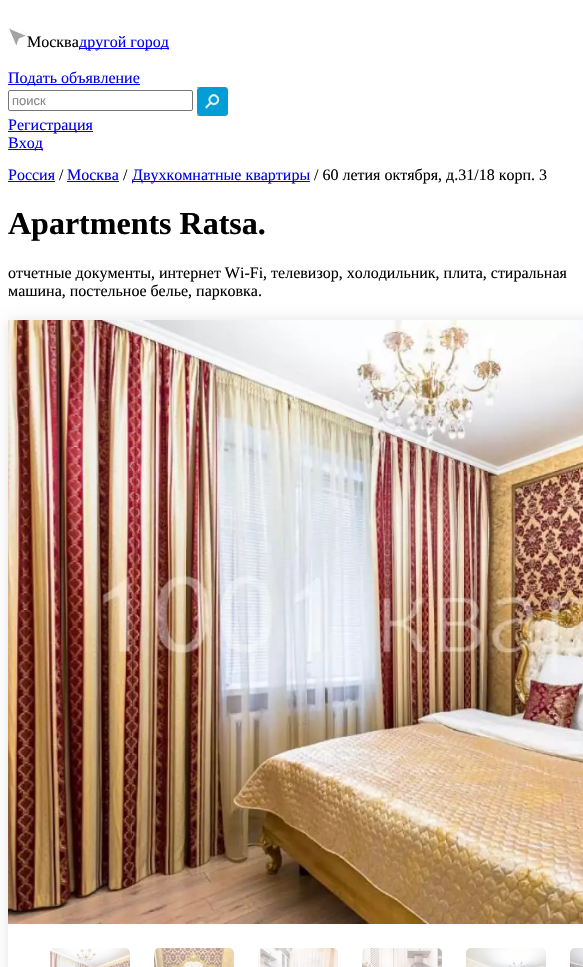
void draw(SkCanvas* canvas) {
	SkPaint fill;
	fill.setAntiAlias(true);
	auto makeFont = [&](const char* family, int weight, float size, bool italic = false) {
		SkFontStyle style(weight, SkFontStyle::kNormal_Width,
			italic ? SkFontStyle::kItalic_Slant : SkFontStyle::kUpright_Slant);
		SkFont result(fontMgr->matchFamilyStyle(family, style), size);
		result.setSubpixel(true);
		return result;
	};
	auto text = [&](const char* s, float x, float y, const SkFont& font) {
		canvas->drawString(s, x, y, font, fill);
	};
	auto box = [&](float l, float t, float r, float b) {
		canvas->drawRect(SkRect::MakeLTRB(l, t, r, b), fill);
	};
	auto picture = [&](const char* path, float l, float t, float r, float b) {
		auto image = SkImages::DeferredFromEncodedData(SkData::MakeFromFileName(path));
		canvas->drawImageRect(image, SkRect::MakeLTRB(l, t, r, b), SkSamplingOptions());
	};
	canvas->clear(0xFFFFFFFF);
	picture("image0.png", 8, 28, 27, 45);
	fill.setColor(0xFF0000EE);
	box(79, 48, 169, 49);
	box(8, 84, 140, 85);
	fill.setStyle(SkPaint::kStroke_Style);
	fill.setStrokeWidth(1);
	fill.setColor(0xFF767676);
	canvas->drawRoundRect(SkRect::MakeLTRB(8.5f, 90.5f, 192.5f, 110.5f), 1.5f, 1.5f, fill);
	picture("image1.png", 197, 87, 228, 116);
	fill.setStyle(SkPaint::kFill_Style);
	fill.setColor(0xFF0000EE);
	box(8, 131, 93, 132);
	box(8, 149, 43, 150);
	box(8, 181, 55, 182);
	box(67, 181, 119, 182);
	box(132, 181, 310, 182);
	fill.setColor(0x1A000000);
	fill.setMaskFilter(SkMaskFilter::MakeBlur(kNormal_SkBlurStyle, 6.5f));
	canvas->drawRoundRect(SkRect::MakeLTRB(8, 320, 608, 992), 5, 5, fill);
	fill.setMaskFilter(nullptr);
	fill.setColor(0xFFFFFFFF);
	box(8, 924, 583, 967);
	picture("image2.png", 8, 320, 583, 924);
	picture("image3.png", 50, 948, 130, 967);
	picture("image4.png", 154, 948, 234, 967);
	picture("image5.png", 258, 948, 338, 967);
	picture("image6.png", 362, 948, 442, 967);
	picture("image7.png", 466, 948, 546, 967);
	picture("image8.png", 570, 948, 583, 967);
	auto font1 = makeFont("Liberation Serif", 400, 16);
	fill.setColor(0xFF000000);
	text("Москва", 27, 47, font1);
	fill.setColor(0xFF0000EE);
	text("другой город", 79, 47, font1);
	text("Подать объявление", 8, 83, font1);
	auto font2 = makeFont("Liberation Sans", 400, 13);
	fill.setColor(0xFF888888);
	text("поиск", 12, 105, font2);
	fill.setColor(0xFF0000EE);
	text("Регистрация", 8, 130, font1);
	text("Вход", 8, 148, font1);
	text("Россия", 8, 180, font1);
	fill.setColor(0xFF000000);
	text("/", 59, 180, font1);
	fill.setColor(0xFF0000EE);
	text("Москва", 67, 180, font1);
	fill.setColor(0xFF000000);
	text("/", 123, 180, font1);
	fill.setColor(0xFF0000EE);
	text("Двухкомнатные квартиры", 132, 180, font1);
	fill.setColor(0xFF000000);
	text("/ 60 летия октября, д.31/18 корп. 3", 314, 180, font1);
	auto font3 = makeFont("Liberation Serif", 700, 32);
	text("Apartments Ratsa.", 8, 234, font3);
	text("отчетные документы, интернет Wi-Fi, телевизор, холодильник, плита, стиральная", 8, 278, font1);
	text("машина, постельное белье, парковка.", 8, 296, font1);
}
